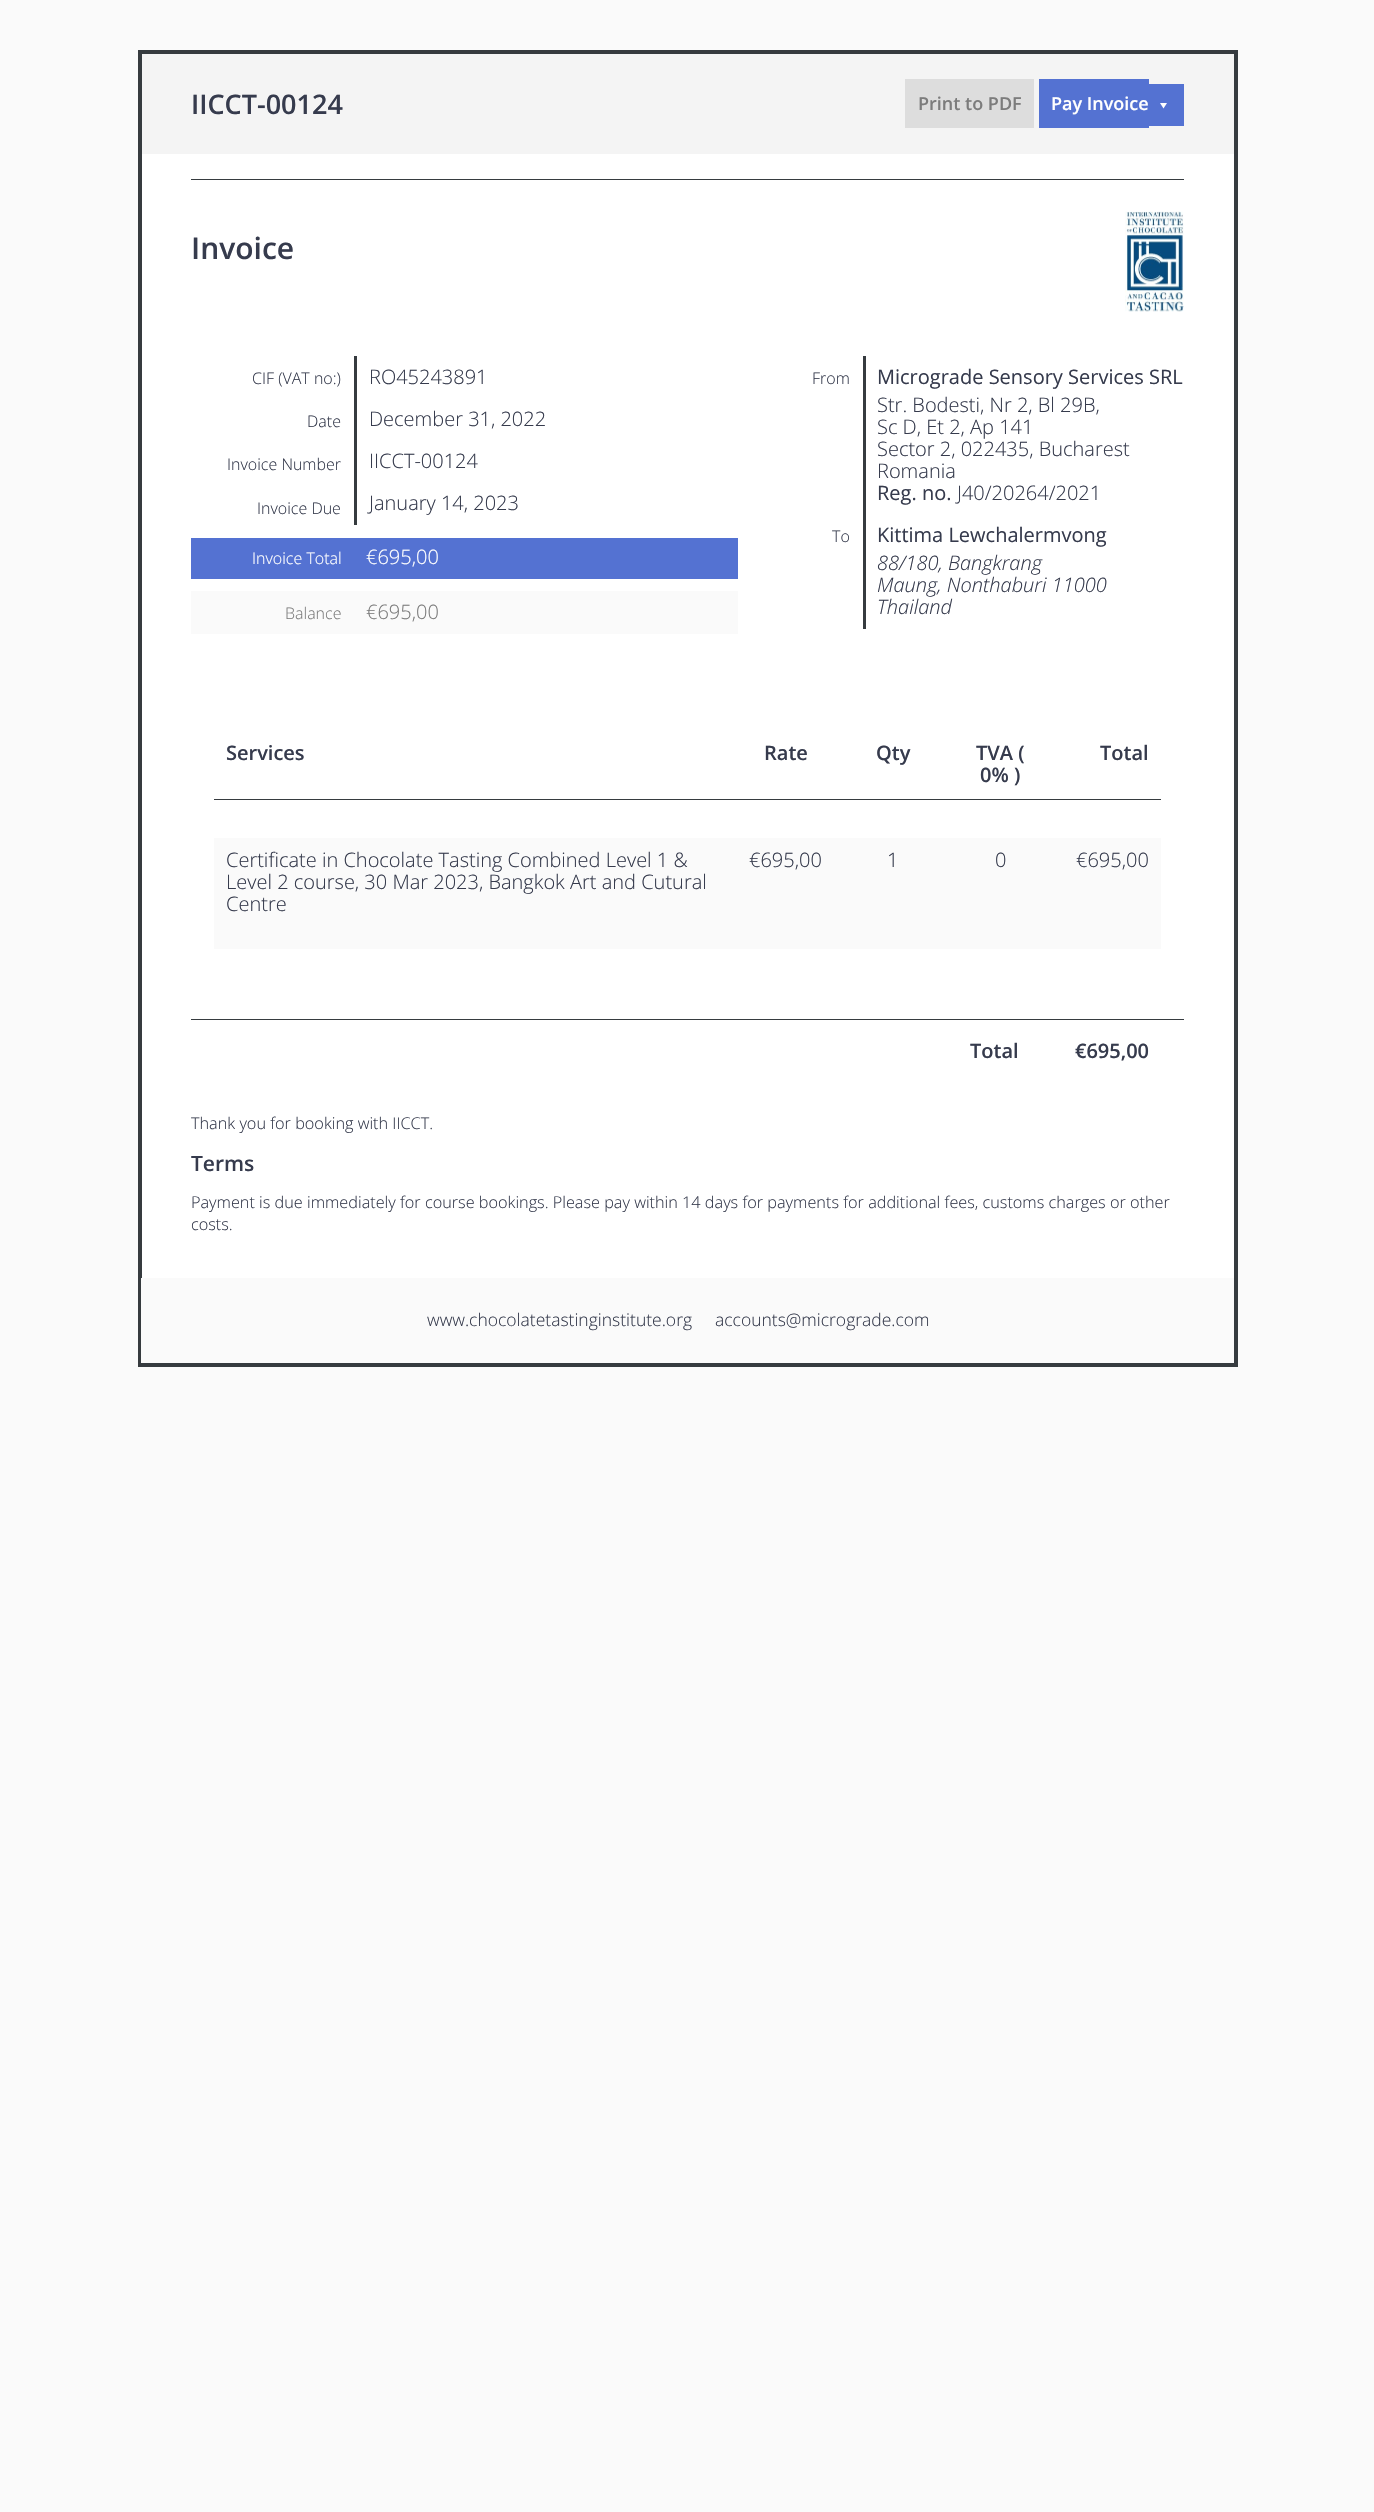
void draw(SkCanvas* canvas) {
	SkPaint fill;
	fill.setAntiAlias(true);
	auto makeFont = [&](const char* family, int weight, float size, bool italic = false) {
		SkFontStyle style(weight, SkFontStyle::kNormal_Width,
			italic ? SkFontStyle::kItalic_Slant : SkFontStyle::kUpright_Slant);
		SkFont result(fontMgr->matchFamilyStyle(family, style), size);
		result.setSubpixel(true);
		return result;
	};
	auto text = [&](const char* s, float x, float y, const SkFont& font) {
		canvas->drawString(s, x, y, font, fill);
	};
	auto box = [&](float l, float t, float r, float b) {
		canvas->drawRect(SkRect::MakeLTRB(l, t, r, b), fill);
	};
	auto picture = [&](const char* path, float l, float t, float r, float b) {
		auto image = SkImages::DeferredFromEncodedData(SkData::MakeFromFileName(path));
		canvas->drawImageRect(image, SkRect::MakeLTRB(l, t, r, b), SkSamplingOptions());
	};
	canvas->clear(0xFFFAFAFA);
	fill.setColor(0xFFF4F4F4);
	box(142, 54, 1234, 154);
	fill.setColor(0xFF363B3F);
	box(138, 50, 1238, 54);
	box(1234, 50, 1238, 154);
	box(138, 50, 142, 154);
	fill.setColor(0xFFDDDDDD);
	box(905, 79, 1034, 128);
	fill.setColor(0xFF5472D2);
	box(1039, 79, 1149, 128);
	box(1149, 84, 1184, 126);
	fill.setColor(0xFFFFFFFF);
	canvas->drawPath(SkPathBuilder().moveTo(1167, 103).lineTo(1163.5f, 108.5f).lineTo(1160, 103).close().detach(), fill);
	box(142, 154, 1234, 1278);
	fill.setColor(0xFF363B3F);
	box(1234, 154, 1238, 1366);
	box(138, 1363, 1238, 1367);
	box(138, 154, 142, 1366);
	box(191, 179, 1184, 180);
	picture("image0.png", 1125, 211, 1184, 312);
	box(354, 356, 357, 525);
	fill.setColor(0xFF5472D2);
	box(191, 538, 738, 579);
	fill.setColor(0xFFFAFAFA);
	box(191, 591, 738, 634);
	fill.setColor(0xFF363B3F);
	box(863, 356, 866, 629);
	box(214, 799, 1161, 800);
	fill.setColor(0xFFFAFAFA);
	box(214, 838, 1161, 949);
	fill.setColor(0xFF363B3F);
	box(191, 1019, 1184, 1020);
	fill.setColor(0xFFFAFAFA);
	box(141, 1278, 142, 1363);
	auto font1 = makeFont("Open Sans", 600, 27);
	fill.setColor(0xFF363B4D);
	text("IICCT-00124", 191, 114, font1);
	auto font2 = makeFont("Open Sans", 600, 18);
	fill.setColor(0xFF7C7C7C);
	text("Print to PDF", 918, 110, font2);
	fill.setColor(0xFFFFFFFF);
	text("Pay Invoice", 1051, 110, font2);
	auto font3 = makeFont("Open Sans", 600, 30);
	fill.setColor(0xFF363B4D);
	text("Invoice", 191, 259, font3);
	auto font4 = makeFont("Open Sans", 300, 16);
	text("CIF (VAT no:)", 252, 384, font4);
	auto font5 = makeFont("Open Sans", 300, 20);
	text("RO45243891", 369, 384, font5);
	text("Date", 307, 427, font4);
	text("December 31, 2022", 369, 426, font5);
	text("Invoice Number", 227, 470, font4);
	text("IICCT-00124", 369, 468, font5);
	text("Invoice Due", 257, 514, font4);
	text("January 14, 2023", 369, 510, font5);
	fill.setColor(0xFFFFFFFF);
	text("Invoice Total", 252, 564, font4);
	text("€695,00", 366, 564, font5);
	fill.setColor(0xFF7C7C7C);
	text("Balance", 285, 619, font4);
	text("€695,00", 366, 619, font5);
	fill.setColor(0xFF363B4D);
	text("From", 812, 384, font4);
	auto font6 = makeFont("Open Sans", 400, 20);
	text("Micrograde Sensory Services SRL", 877, 384, font6);
	text("Str. Bodesti, Nr 2, Bl 29B,", 877, 412, font5);
	text("Sc D, Et 2, Ap 141", 877, 434, font5);
	text("Sector 2, 022435, Bucharest", 877, 456, font5);
	text("Romania", 877, 478, font5);
	text("Reg. no.", 877, 500, font6);
	text("J40/20264/2021", 957, 500, font5);
	text("To", 832, 542, font4);
	text("Kittima Lewchalermvong", 877, 542, font6);
	auto font7 = makeFont("Open Sans", 300, 20, true);
	text("88/180, Bangkrang", 877, 570, font7);
	text("Maung, Nonthaburi 11000", 877, 592, font7);
	text("Thailand", 877, 614, font7);
	auto font8 = makeFont("Open Sans", 600, 20);
	text("Services", 226, 760, font8);
	text("Rate", 764, 760, font8);
	text("Qty", 876, 760, font8);
	text("TVA (", 976, 760, font8);
	text("0% )", 980, 782, font8);
	text("Total", 1100, 760, font8);
	text("Certificate in Chocolate Tasting Combined Level 1 &", 226, 867, font5);
	text("Level 2 course, 30 Mar 2023, Bangkok Art and Cutural", 226, 889, font5);
	text("Centre", 226, 911, font5);
	text("€695,00", 749, 867, font5);
	text("1", 887, 867, font5);
	text("0", 995, 867, font5);
	text("€695,00", 1076, 867, font5);
	text("Total", 970, 1058, font8);
	text("€695,00", 1075, 1058, font8);
	auto font9 = makeFont("Open Sans", 300, 16.25f);
	text("Thank you for booking with IICCT.", 191, 1129, font9);
	auto font10 = makeFont("Open Sans", 600, 21);
	text("Terms", 191, 1171, font10);
	text("Payment is due immediately for course bookings. Please pay within 14 days for payments for additional fees, customs charges or other", 191, 1208, font9);
	text("costs.", 191, 1230, font9);
	auto font11 = makeFont("Open Sans", 300, 17.5f);
	text("www.chocolatetastinginstitute.org", 427, 1326, font11);
	text("accounts@micrograde.com", 715, 1326, font11);
}
